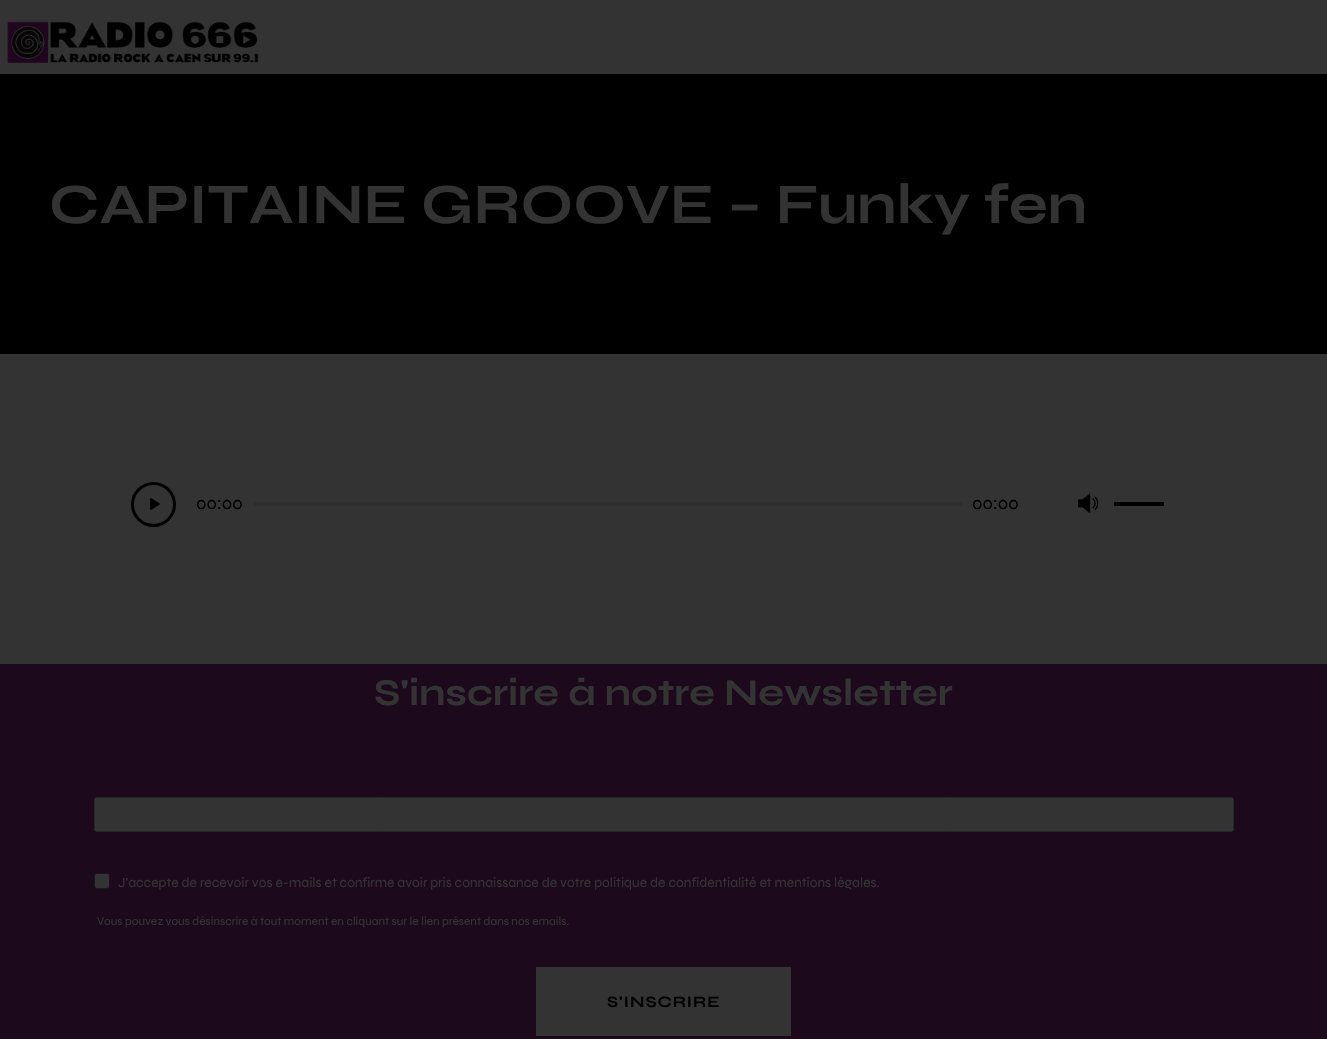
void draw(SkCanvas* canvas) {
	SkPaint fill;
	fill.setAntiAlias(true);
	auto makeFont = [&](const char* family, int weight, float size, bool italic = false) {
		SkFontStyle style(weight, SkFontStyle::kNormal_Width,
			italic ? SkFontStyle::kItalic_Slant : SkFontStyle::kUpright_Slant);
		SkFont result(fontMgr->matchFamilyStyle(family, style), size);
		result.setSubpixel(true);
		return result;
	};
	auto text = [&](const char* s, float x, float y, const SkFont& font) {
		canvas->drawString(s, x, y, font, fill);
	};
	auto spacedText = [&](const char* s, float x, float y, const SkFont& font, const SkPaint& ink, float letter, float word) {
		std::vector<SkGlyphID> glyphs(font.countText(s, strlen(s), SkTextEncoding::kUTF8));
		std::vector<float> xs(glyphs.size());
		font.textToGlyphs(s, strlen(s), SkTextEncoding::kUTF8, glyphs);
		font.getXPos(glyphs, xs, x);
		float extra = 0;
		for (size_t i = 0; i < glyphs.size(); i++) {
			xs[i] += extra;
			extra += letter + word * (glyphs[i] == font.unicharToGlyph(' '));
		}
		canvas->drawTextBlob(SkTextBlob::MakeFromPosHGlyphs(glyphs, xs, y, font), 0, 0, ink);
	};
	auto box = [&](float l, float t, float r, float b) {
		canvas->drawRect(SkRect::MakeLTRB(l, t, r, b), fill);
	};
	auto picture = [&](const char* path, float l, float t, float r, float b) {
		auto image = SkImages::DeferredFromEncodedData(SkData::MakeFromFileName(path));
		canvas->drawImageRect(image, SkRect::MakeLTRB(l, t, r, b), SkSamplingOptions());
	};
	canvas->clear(0xFF333333);
	picture("image0.png", 7, 21, 259, 63);
	fill.setColor(0xFF000000);
	box(0, 74, 1327, 354);
	fill.setStyle(SkPaint::kStroke_Style);
	fill.setStrokeWidth(3);
	canvas->drawCircle(153.5f, 504.5f, 21, fill);
	picture("image1.png", 150, 498, 160, 510);
	fill.setStyle(SkPaint::kFill_Style);
	fill.setColor(0xFF2E2E2F);
	box(253, 502, 962, 506);
	picture("image2.png", 1078, 493, 1099, 513);
	fill.setColor(0xFF000000);
	box(1114, 502, 1164, 506);
	fill.setColor(0xFF1D091C);
	box(0, 664, 1327, 1039);
	fill.setStyle(SkPaint::kStroke_Style);
	fill.setStrokeWidth(1);
	fill.setColor(0xFF26292C);
	canvas->drawRoundRect(SkRect::MakeLTRB(94.5f, 797.5f, 1233.5f, 831.5f), 2.5f, 2.5f, fill);
	fill.setStyle(SkPaint::kFill_Style);
	fill.setColor(0xFF333333);
	box(95, 798, 1233, 831);
	canvas->drawRoundRect(SkRect::MakeLTRB(94.5f, 873.5f, 109.5f, 888.5f), 2.5f, 2.5f, fill);
	fill.setStyle(SkPaint::kStroke_Style);
	fill.setColor(0xFF15171A);
	canvas->drawRoundRect(SkRect::MakeLTRB(94.5f, 873.5f, 109.5f, 888.5f), 2.5f, 2.5f, fill);
	fill.setStyle(SkPaint::kFill_Style);
	fill.setColor(0xFF333333);
	box(536, 967, 791, 1036);
	auto font1 = makeFont("Syne", 700, 57);
	text("CAPITAINE GROOVE – Funky fen", 49, 223, font1);
	auto font2 = makeFont("Syne", 400, 18);
	fill.setColor(0xFF000000);
	text("00:00", 196, 509, font2);
	text("00:00", 972, 509, font2);
	auto font3 = makeFont("Syne", 700, 38);
	fill.setColor(0xFF333333);
	text("S'inscrire à notre Newsletter", 374, 705, font3);
	auto font4 = makeFont("Syne", 400, 14);
	text("J'accepte de recevoir vos e-mails et confirme avoir pris connaissance de votre politique de confidentialité et mentions légales.", 118, 887, font4);
	auto font5 = makeFont("Syne", 400, 12);
	text("Vous pouvez vous désinscrire à tout moment en cliquant sur le lien présent dans nos emails.", 97, 925, font5);
	auto font6 = makeFont("Syne", 700, 16);
	fill.setColor(0xFF000000);
	spacedText("S'INSCRIRE", 607, 1007, font6, fill, 1, 0);
}
